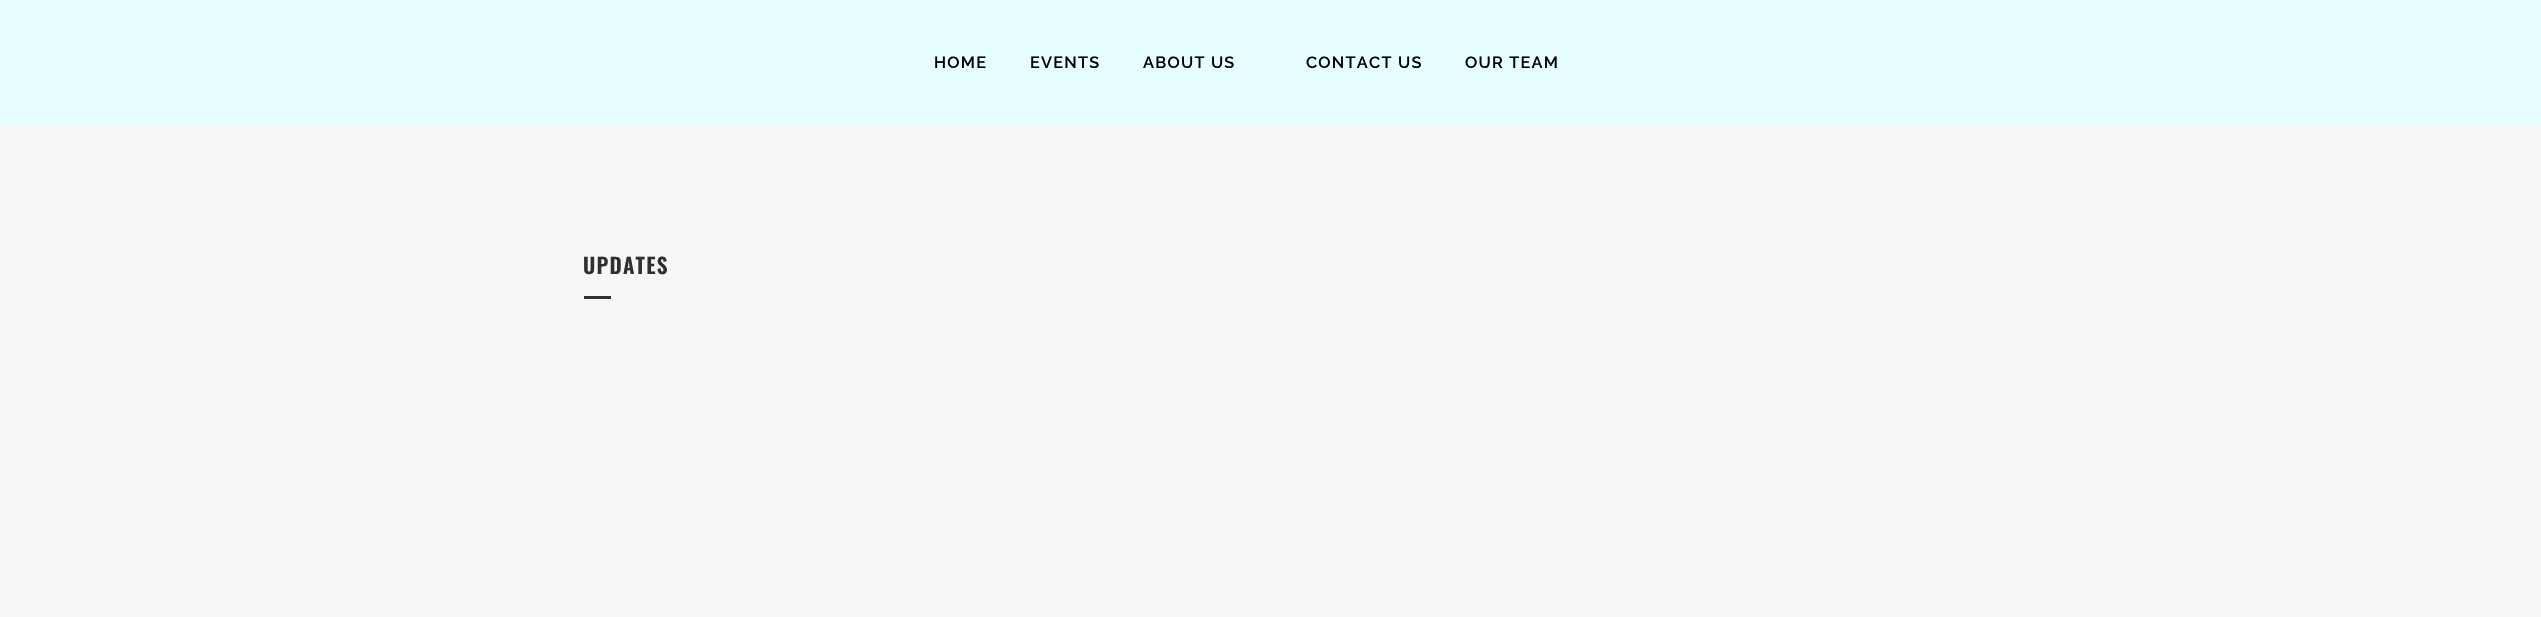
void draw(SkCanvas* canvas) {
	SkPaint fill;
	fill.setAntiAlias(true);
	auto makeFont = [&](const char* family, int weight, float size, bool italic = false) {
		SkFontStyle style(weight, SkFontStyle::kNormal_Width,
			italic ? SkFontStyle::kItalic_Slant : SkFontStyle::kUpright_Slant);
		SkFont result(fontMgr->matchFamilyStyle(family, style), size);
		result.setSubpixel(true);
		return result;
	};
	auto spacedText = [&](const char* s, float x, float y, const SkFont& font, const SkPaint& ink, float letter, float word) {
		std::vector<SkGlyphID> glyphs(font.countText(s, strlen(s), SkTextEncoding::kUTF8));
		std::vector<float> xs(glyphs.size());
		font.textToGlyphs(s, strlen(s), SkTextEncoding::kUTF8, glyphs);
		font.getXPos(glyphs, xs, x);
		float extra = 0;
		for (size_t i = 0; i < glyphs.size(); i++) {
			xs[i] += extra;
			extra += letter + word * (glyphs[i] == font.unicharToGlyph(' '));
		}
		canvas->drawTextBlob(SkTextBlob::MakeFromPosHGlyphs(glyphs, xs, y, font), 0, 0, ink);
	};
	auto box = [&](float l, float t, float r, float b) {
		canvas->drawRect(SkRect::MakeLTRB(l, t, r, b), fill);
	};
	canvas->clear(0xFFF6F6F6);
	fill.setColor(0xFFE6FDFF);
	box(0, 0, 2541, 125);
	fill.setColor(0xFF303030);
	box(584, 296, 611, 299);
	auto font1 = makeFont("Raleway", 600, 16.25f);
	fill.setColor(0xFF000000);
	spacedText("HOME", 934, 68, font1, fill, 1.25f, 0);
	spacedText("EVENTS", 1030, 68, font1, fill, 1.25f, 0);
	spacedText("ABOUT US", 1143, 68, font1, fill, 1.25f, 0);
	spacedText("CONTACT US", 1306, 68, font1, fill, 1.25f, 0);
	spacedText("OUR TEAM", 1465, 68, font1, fill, 1.25f, 0);
	auto font2 = makeFont("Oswald", 600, 21.25f);
	fill.setColor(0xFF303030);
	spacedText("UPDATES", 583, 274, font2, fill, 1.25f, 0);
}
